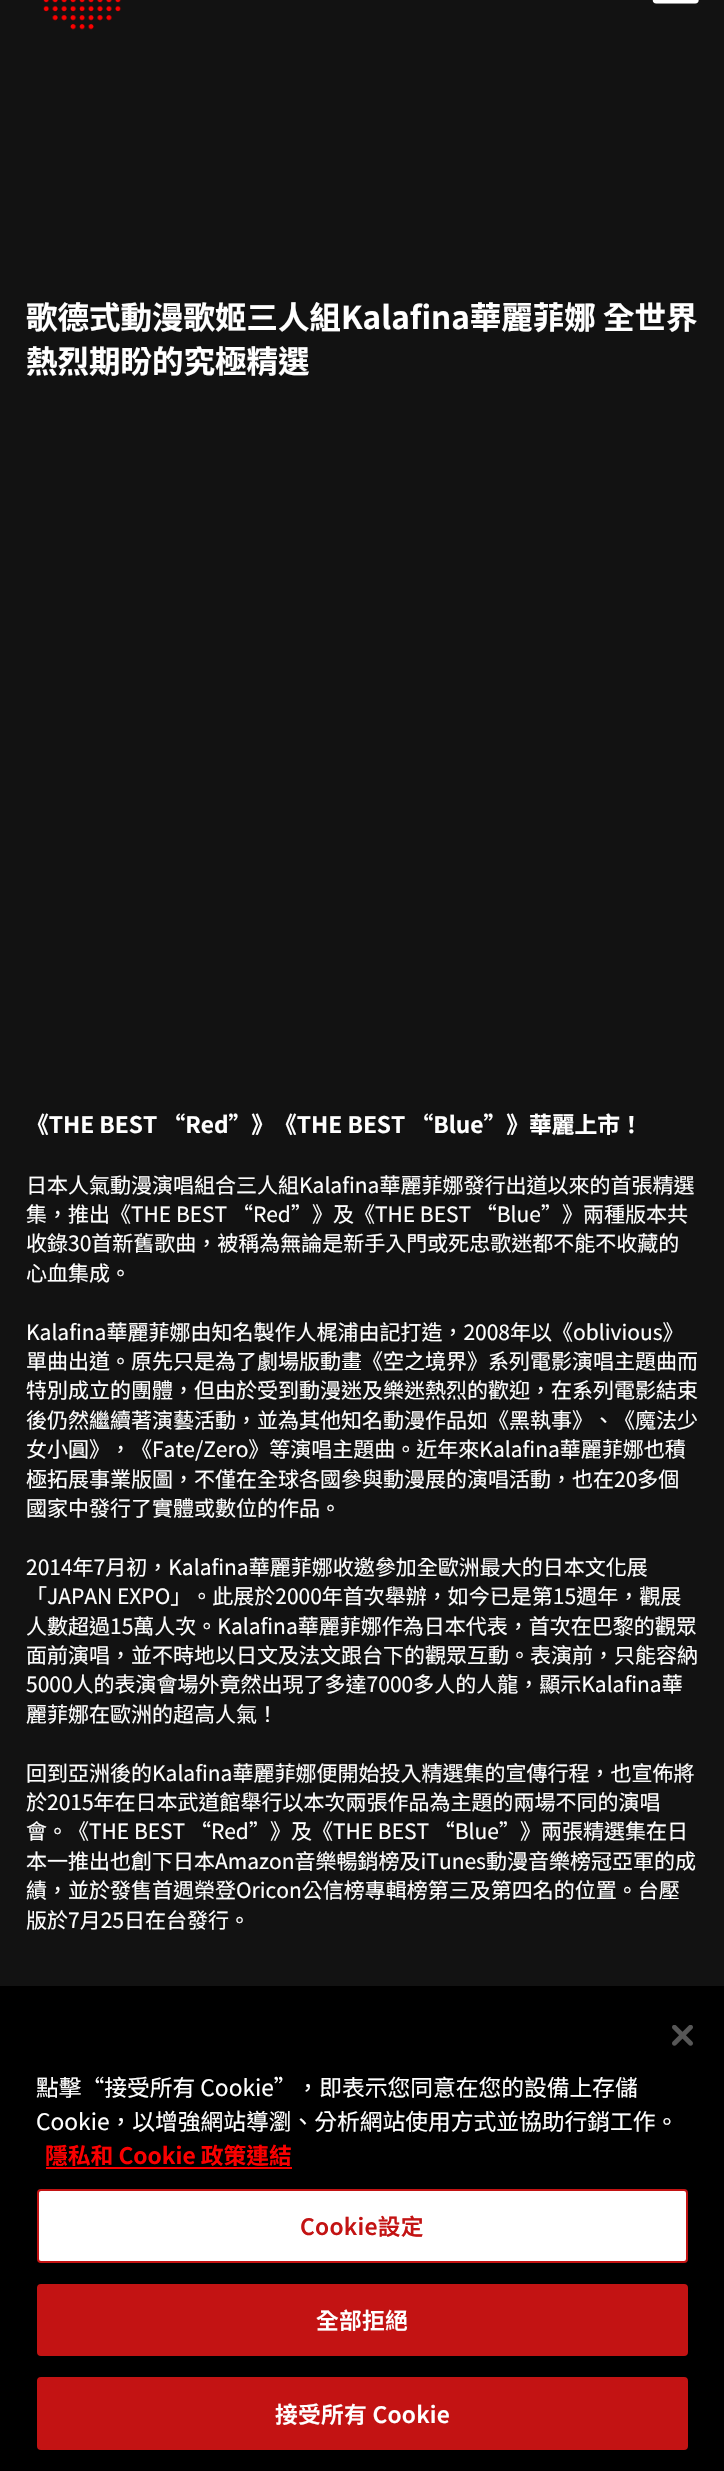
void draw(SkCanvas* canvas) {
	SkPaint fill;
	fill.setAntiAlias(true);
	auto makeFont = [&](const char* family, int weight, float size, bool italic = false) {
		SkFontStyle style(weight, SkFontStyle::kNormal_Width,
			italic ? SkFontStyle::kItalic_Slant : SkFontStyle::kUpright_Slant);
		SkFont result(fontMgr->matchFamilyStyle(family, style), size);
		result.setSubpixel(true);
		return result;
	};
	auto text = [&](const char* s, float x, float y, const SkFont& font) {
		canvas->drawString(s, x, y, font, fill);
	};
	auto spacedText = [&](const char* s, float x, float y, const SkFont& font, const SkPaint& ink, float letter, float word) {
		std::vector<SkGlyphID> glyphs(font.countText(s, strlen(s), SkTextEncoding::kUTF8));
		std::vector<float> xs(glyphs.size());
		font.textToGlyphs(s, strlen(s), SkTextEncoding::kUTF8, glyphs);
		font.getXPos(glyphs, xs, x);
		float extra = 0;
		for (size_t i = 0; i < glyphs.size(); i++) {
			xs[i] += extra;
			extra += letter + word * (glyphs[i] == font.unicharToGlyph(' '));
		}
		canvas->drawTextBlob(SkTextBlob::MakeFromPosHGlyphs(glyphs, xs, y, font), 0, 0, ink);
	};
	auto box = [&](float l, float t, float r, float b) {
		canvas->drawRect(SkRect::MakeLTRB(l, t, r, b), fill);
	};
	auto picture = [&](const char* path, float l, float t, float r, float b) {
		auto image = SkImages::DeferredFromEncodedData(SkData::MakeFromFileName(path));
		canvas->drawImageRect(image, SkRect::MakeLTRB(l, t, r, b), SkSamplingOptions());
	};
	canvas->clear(0xFF121212);
	picture("image0.png", 43, 0, 122, 30);
	picture("image1.png", 652, 0, 699, 4);
	fill.setColor(0xFF000000);
	box(0, 1986, 724, 2471);
	picture("image2.png", 672, 2025, 693, 2046);
	fill.setColor(0xFFF90000);
	box(46, 2167, 292, 2169);
	fill.setColor(0xFFFFFFFF);
	canvas->drawRoundRect(SkRect::MakeLTRB(38, 2190, 687, 2262), 3, 3, fill);
	fill.setStyle(SkPaint::kStroke_Style);
	fill.setStrokeWidth(2);
	fill.setColor(0xFFC31313);
	canvas->drawRoundRect(SkRect::MakeLTRB(38, 2190, 687, 2262), 3, 3, fill);
	fill.setStyle(SkPaint::kFill_Style);
	canvas->drawRoundRect(SkRect::MakeLTRB(38, 2285, 687, 2355), 3, 3, fill);
	fill.setStyle(SkPaint::kStroke_Style);
	canvas->drawRoundRect(SkRect::MakeLTRB(38, 2285, 687, 2355), 3, 3, fill);
	fill.setStyle(SkPaint::kFill_Style);
	canvas->drawRoundRect(SkRect::MakeLTRB(38, 2378, 687, 2449), 3, 3, fill);
	fill.setStyle(SkPaint::kStroke_Style);
	canvas->drawRoundRect(SkRect::MakeLTRB(38, 2378, 687, 2449), 3, 3, fill);
	auto font1 = makeFont("Noto Sans TC", 700, 31.5f);
	fill.setStyle(SkPaint::kFill_Style);
	fill.setColor(0xFFFFFFFF);
	text("歌德式動漫歌姬三人組Kalafina華麗菲娜 全世界", 26, 329, font1);
	text("熱烈期盼的究極精選", 26, 373, font1);
	auto font2 = makeFont("Noto Sans TC", 700, 22.75f);
	text("《THE BEST “Red”》《THE BEST “Blue”》華麗上市！", 26, 1133, font2);
	auto font3 = makeFont("Noto Sans TC", 400, 21);
	text("日本人氣動漫演唱組合三人組Kalafina華麗菲娜發行出道以來的首張精選", 26, 1193, font3);
	text("集，推出《THE BEST “Red”》及《THE BEST “Blue”》兩種版本共", 26, 1222, font3);
	text("收錄30首新舊歌曲，被稱為無論是新手入門或死忠歌迷都不能不收藏的", 26, 1251, font3);
	text("心血集成。", 26, 1281, font3);
	text("Kalafina華麗菲娜由知名製作人梶浦由記打造，2008年以《oblivious》", 26, 1340, font3);
	text("單曲出道。原先只是為了劇場版動畫《空之境界》系列電影演唱主題曲而", 26, 1369, font3);
	text("特別成立的團體，但由於受到動漫迷及樂迷熱烈的歡迎，在系列電影結束", 26, 1398, font3);
	text("後仍然繼續著演藝活動，並為其他知名動漫作品如《黑執事》、《魔法少", 26, 1428, font3);
	text("女小圓》，《Fate/Zero》等演唱主題曲。近年來Kalafina華麗菲娜也積", 26, 1457, font3);
	text("極拓展事業版圖，不僅在全球各國參與動漫展的演唱活動，也在20多個", 26, 1487, font3);
	text("國家中發行了實體或數位的作品。", 26, 1516, font3);
	text("2014年7月初，Kalafina華麗菲娜收邀參加全歐洲最大的日本文化展", 26, 1575, font3);
	text("「JAPAN EXPO」。此展於2000年首次舉辦，如今已是第15週年，觀展", 26, 1604, font3);
	text("人數超過15萬人次。Kalafina華麗菲娜作為日本代表，首次在巴黎的觀眾", 26, 1634, font3);
	text("面前演唱，並不時地以日文及法文跟台下的觀眾互動。表演前，只能容納", 26, 1663, font3);
	text("5000人的表演會場外竟然出現了多達7000多人的人龍，顯示Kalafina華", 26, 1692, font3);
	text("麗菲娜在歐洲的超高人氣！", 26, 1722, font3);
	text("回到亞洲後的Kalafina華麗菲娜便開始投入精選集的宣傳行程，也宣佈將", 26, 1781, font3);
	text("於2015年在日本武道館舉行以本次兩張作品為主題的兩場不同的演唱", 26, 1810, font3);
	text("會。《THE BEST “Red”》及《THE BEST “Blue”》兩張精選集在日", 26, 1839, font3);
	text("本一推出也創下日本Amazon音樂暢銷榜及iTunes動漫音樂榜冠亞軍的成", 26, 1869, font3);
	text("績，並於發售首週榮登Oricon公信榜專輯榜第三及第四名的位置。台壓", 26, 1898, font3);
	text("版於7月25日在台發行。", 26, 1928, font3);
	auto font4 = makeFont("Noto Sans TC", 400, 22.75f);
	text("點擊“接受所有 Cookie”，即表示您同意在您的設備上存儲", 36, 2096, font4);
	text("Cookie，以增強網站導瀏、分析網站使用方式並協助行銷工作。", 36, 2130, font4);
	fill.setColor(0xFFF90000);
	text("隱私和 Cookie 政策連結", 45, 2164, font2);
	auto font5 = makeFont("Noto Sans TC", 600, 22.75f);
	fill.setColor(0xFFC31313);
	spacedText("Cookie設定", 300, 2235, font5, fill, 0.25f, 0);
	fill.setColor(0xFFFFFFFF);
	spacedText("全部拒絕", 316, 2329, font5, fill, 0.25f, 0);
	spacedText("接受所有 Cookie", 275, 2423, font5, fill, 0.25f, 0);
}
